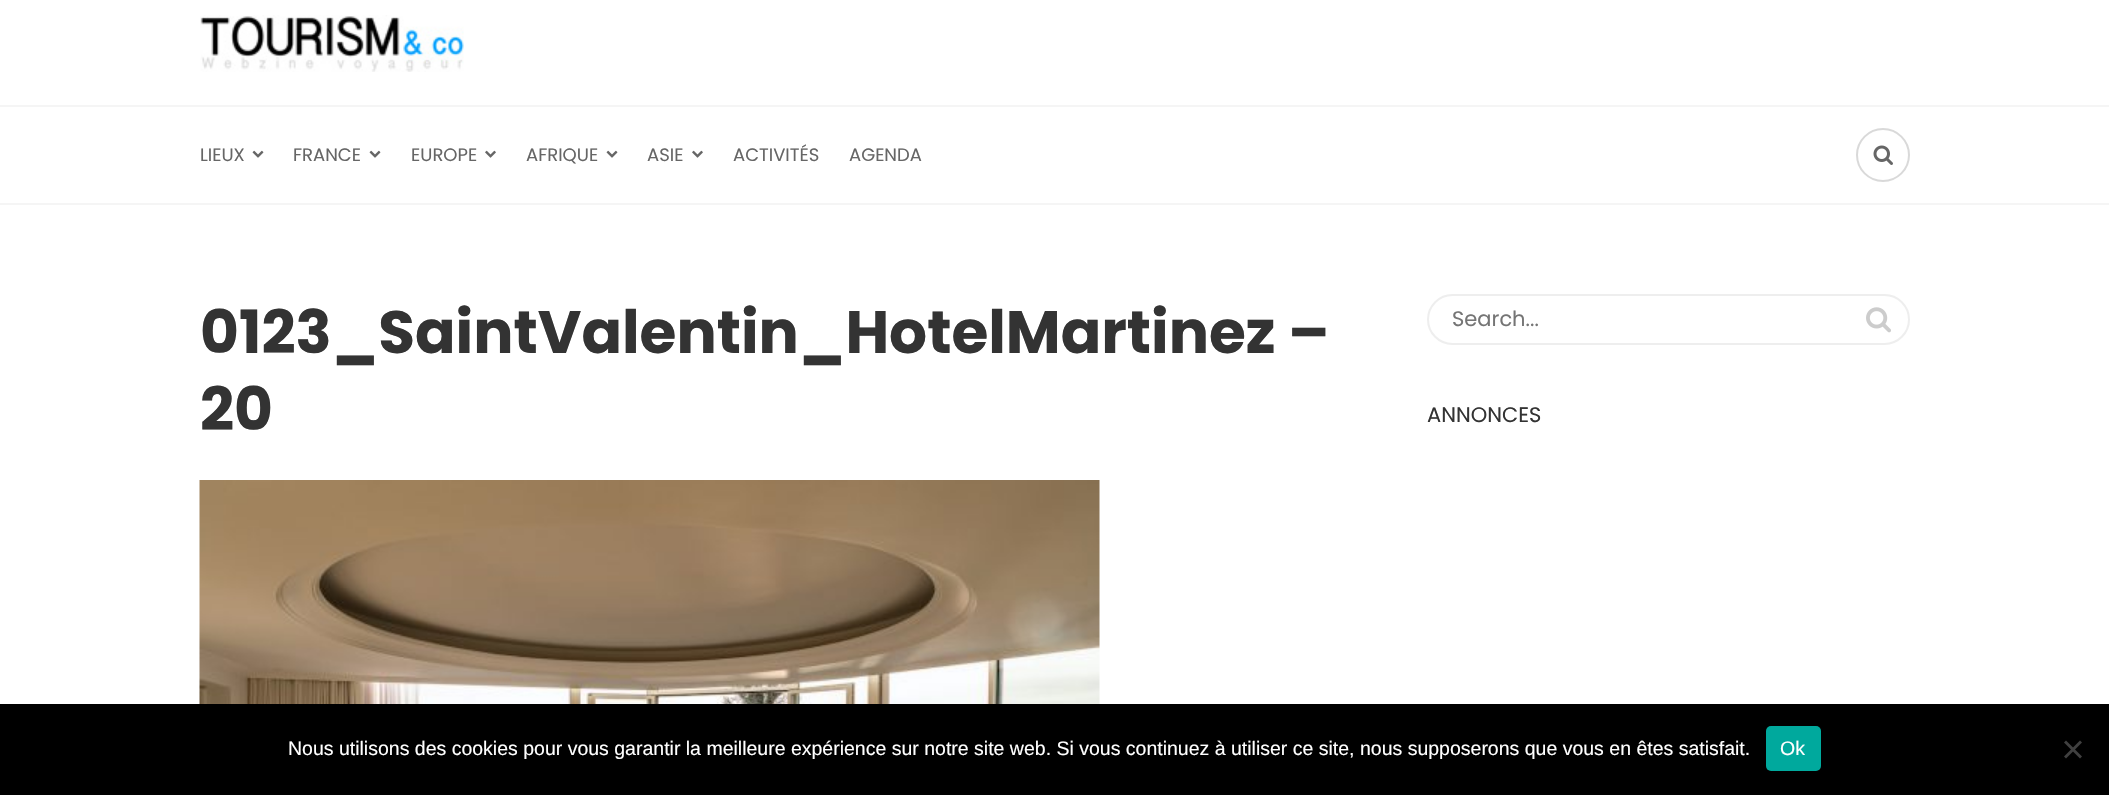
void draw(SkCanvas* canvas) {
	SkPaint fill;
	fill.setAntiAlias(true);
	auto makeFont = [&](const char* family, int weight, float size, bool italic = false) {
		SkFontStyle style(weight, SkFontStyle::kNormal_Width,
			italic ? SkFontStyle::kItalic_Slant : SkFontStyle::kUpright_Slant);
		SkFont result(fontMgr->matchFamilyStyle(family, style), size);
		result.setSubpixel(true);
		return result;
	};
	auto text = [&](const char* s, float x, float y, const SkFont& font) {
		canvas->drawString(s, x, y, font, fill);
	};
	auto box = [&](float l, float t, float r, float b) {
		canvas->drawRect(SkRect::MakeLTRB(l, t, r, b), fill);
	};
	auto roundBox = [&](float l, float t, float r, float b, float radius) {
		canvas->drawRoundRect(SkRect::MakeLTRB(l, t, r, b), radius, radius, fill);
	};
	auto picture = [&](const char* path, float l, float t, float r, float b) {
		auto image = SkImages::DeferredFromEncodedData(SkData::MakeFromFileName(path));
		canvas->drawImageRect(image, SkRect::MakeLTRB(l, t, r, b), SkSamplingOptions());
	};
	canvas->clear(0xFFFFFFFF);
	picture("image0.png", 200, 15, 464, 72);
	fill.setColor(0xFFF5F5F5);
	box(0, 105, 2109, 107);
	box(0, 203, 2109, 205);
	picture("image1.png", 252, 150, 264, 158);
	picture("image1.png", 369, 150, 381, 158);
	picture("image2.png", 485, 150, 496, 158);
	picture("image1.png", 606, 150, 618, 158);
	picture("image2.png", 692, 150, 703, 158);
	fill.setStyle(SkPaint::kStroke_Style);
	fill.setStrokeWidth(2);
	fill.setColor(0xFFD9D9D9);
	canvas->drawCircle(1883, 155, 26, fill);
	picture("image3.png", 1873, 145, 1893, 165);
	picture("image4.png", 199, 480, 1100, 704);
	fill.setColor(0xFFEEEEEE);
	canvas->drawRoundRect(SkRect::MakeLTRB(1428, 295, 1909, 344), 24.5f, 24.5f, fill);
	picture("image5.png", 1866, 307, 1891, 333);
	fill.setStyle(SkPaint::kFill_Style);
	fill.setColor(0xFF000000);
	box(0, 704, 2109, 795);
	fill.setColor(0xFF00A99D);
	roundBox(1766, 726, 1821, 771, 5);
	fill.setColor(0xFF404040);
	canvas->drawPath(SkPathBuilder().moveTo(2080, 740.5f).lineTo(2082, 742.5f).lineTo(2066, 758.5f).lineTo(2064, 756.5f).close().detach(), fill);
	canvas->drawPath(SkPathBuilder().moveTo(2064, 742.5f).lineTo(2066, 740.5f).lineTo(2082, 756.5f).lineTo(2080, 758.5f).close().detach(), fill);
	auto font1 = makeFont("Poppins", 400, 18);
	fill.setColor(0xFF666666);
	text("LIEUX", 200, 161, font1);
	text("FRANCE", 293, 161, font1);
	text("EUROPE", 411, 161, font1);
	text("AFRIQUE", 526, 161, font1);
	text("ASIE", 647, 161, font1);
	text("ACTIVITÉS", 733, 161, font1);
	text("AGENDA", 849, 161, font1);
	auto font2 = makeFont("Poppins", 700, 59.75f);
	fill.setColor(0xFF333333);
	text("0123_SaintValentin_HotelMartinez –", 200, 353, font2);
	text("20", 200, 430, font2);
	auto font3 = makeFont("Poppins", 400, 21);
	fill.setColor(0xFF757575);
	text("Search...", 1452, 326, font3);
	fill.setColor(0xFF333333);
	text("ANNONCES", 1427, 422, font3);
	auto font4 = makeFont("Liberation Sans", 400, 19.5f);
	fill.setColor(0xFFFFFFFF);
	text("Nous utilisons des cookies pour vous garantir la meilleure expérience sur notre site web. Si vous continuez à utiliser ce site, nous supposerons que vous en êtes satisfait.", 288, 755, font4);
	text("Ok", 1780, 755, font4);
}
